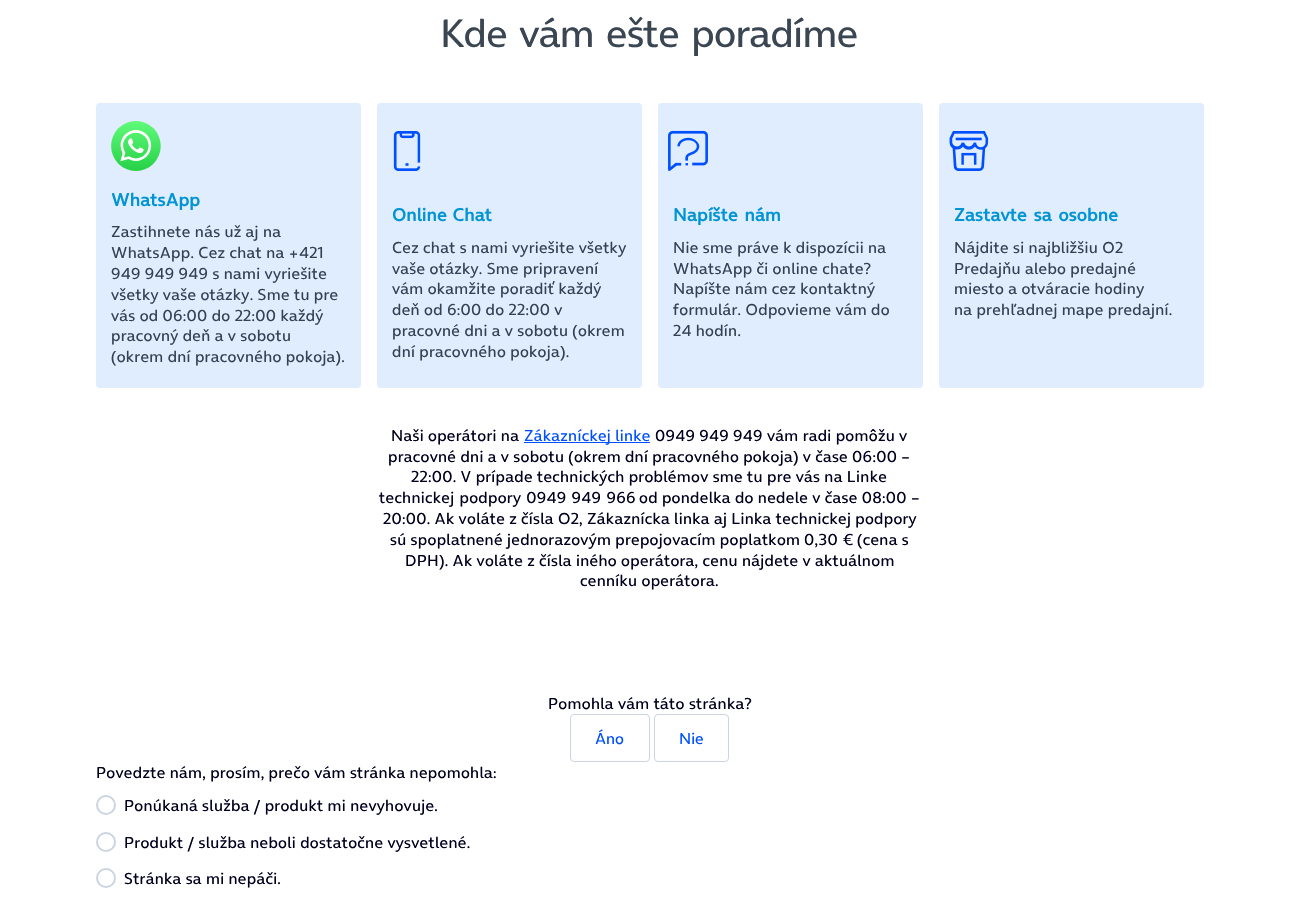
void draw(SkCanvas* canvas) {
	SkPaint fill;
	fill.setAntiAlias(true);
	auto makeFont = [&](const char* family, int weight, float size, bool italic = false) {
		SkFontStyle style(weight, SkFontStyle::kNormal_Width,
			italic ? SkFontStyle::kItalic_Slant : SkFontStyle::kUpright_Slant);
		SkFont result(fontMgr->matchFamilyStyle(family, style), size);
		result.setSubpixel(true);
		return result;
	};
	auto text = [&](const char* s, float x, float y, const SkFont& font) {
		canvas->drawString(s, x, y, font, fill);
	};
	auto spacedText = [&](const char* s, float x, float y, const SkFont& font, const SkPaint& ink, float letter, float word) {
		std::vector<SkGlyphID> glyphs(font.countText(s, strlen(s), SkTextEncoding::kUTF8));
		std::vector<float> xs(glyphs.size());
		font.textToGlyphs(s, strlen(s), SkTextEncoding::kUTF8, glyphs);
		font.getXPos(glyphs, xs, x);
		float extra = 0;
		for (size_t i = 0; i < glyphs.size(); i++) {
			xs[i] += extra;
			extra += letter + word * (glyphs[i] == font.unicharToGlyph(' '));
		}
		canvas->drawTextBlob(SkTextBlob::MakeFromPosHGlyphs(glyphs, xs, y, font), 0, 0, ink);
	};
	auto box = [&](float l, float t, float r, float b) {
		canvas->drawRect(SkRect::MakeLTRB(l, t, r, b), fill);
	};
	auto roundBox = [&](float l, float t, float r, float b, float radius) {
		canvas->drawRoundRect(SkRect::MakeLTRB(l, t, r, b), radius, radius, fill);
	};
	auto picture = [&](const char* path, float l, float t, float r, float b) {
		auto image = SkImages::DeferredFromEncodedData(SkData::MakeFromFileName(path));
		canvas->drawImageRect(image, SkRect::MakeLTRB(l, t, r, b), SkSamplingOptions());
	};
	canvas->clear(0xFFFFFFFF);
	fill.setColor(0xFFDFEDFF);
	roundBox(96, 103, 361, 388, 4);
	picture("image0.png", 111, 121, 161, 171);
	roundBox(377, 103, 642, 388, 4);
	picture("image1.png", 393, 131, 421, 171);
	roundBox(658, 103, 923, 388, 4);
	picture("image2.png", 668, 130, 708, 171);
	roundBox(939, 103, 1204, 388, 4);
	picture("image3.png", 949, 131, 989, 171);
	fill.setColor(0xFF0050FF);
	box(524, 442, 650, 443);
	fill.setStyle(SkPaint::kStroke_Style);
	fill.setStrokeWidth(1);
	fill.setColor(0xFFCBD5E1);
	canvas->drawRoundRect(SkRect::MakeLTRB(570.5f, 714.5f, 649.5f, 761.5f), 3.5f, 3.5f, fill);
	canvas->drawRoundRect(SkRect::MakeLTRB(654.5f, 714.5f, 728.5f, 761.5f), 3.5f, 3.5f, fill);
	fill.setStrokeWidth(2);
	canvas->drawCircle(106, 805, 9, fill);
	canvas->drawCircle(106, 842, 9, fill);
	canvas->drawCircle(106, 878, 9, fill);
	auto font1 = makeFont("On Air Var", 400, 40);
	fill.setStyle(SkPaint::kFill_Style);
	fill.setColor(0xFF3B4653);
	spacedText("Kde vám ešte poradíme", 440, 47, font1, fill, -0.6f, 3);
	auto font2 = makeFont("On Air Var", 700, 18);
	fill.setColor(0xFF0093D5);
	spacedText("WhatsApp", 111, 206, font2, fill, 0.3f, 0);
	auto font3 = makeFont("On Air Var", 400, 16);
	fill.setColor(0xFF334155);
	spacedText("Zastihnete nás už aj na", 111, 237, font3, fill, 0.3f, 0);
	spacedText("WhatsApp. Cez chat na +421", 111, 258, font3, fill, 0.3f, 0);
	spacedText("949 949 949 s nami vyriešite", 111, 279, font3, fill, 0.3f, 0);
	spacedText("všetky vaše otázky. Sme tu pre", 111, 300, font3, fill, 0.3f, 0);
	spacedText("vás od 06:00 do 22:00 každý", 111, 321, font3, fill, 0.3f, 0);
	spacedText("pracovný deň a v sobotu", 111, 341, font3, fill, 0.3f, 0);
	spacedText("(okrem dní pracovného pokoja).", 111, 362, font3, fill, 0.3f, 0);
	fill.setColor(0xFF0093D5);
	spacedText("Online Chat", 392, 221, font2, fill, 0.3f, 1);
	fill.setColor(0xFF334155);
	spacedText("Cez chat s nami vyriešite všetky", 392, 253, font3, fill, 0.3f, 0);
	spacedText("vaše otázky. Sme pripravení", 392, 274, font3, fill, 0.3f, 0);
	spacedText("vám okamžite poradiť každý", 392, 294, font3, fill, 0.3f, 0);
	spacedText("deň od 6:00 do 22:00 v", 392, 315, font3, fill, 0.3f, 0);
	spacedText("pracovné dni a v sobotu (okrem", 392, 336, font3, fill, 0.3f, 0);
	spacedText("dní pracovného pokoja).", 392, 357, font3, fill, 0.3f, 0);
	fill.setColor(0xFF0093D5);
	spacedText("Napíšte nám", 673, 221, font2, fill, 0.3f, 2);
	fill.setColor(0xFF334155);
	spacedText("Nie sme práve k dispozícii na", 673, 253, font3, fill, 0.3f, 0);
	spacedText("WhatsApp či online chate?", 673, 274, font3, fill, 0.3f, 0);
	spacedText("Napíšte nám cez kontaktný", 673, 294, font3, fill, 0.3f, 0);
	spacedText("formulár. Odpovieme vám do", 673, 315, font3, fill, 0.3f, 0);
	spacedText("24 hodín.", 673, 336, font3, fill, 0.3f, 0);
	fill.setColor(0xFF0093D5);
	spacedText("Zastavte sa osobne", 954, 221, font2, fill, 0.3f, 2);
	fill.setColor(0xFF334155);
	spacedText("Nájdite si najbližšiu O2", 954, 253, font3, fill, 0.3f, 0);
	spacedText("Predajňu alebo predajné", 954, 274, font3, fill, 0.3f, 0);
	spacedText("miesto a otváracie hodiny", 954, 294, font3, fill, 0.3f, 0);
	spacedText("na prehľadnej mape predajní.", 954, 315, font3, fill, 0.3f, 0);
	fill.setColor(0xFF00001E);
	spacedText("Naši operátori na", 391, 441, font3, fill, 0.3f, 0);
	fill.setColor(0xFF0050FF);
	spacedText("Zákazníckej linke", 524, 441, font3, fill, 0.3f, 0);
	fill.setColor(0xFF00001E);
	spacedText("0949 949 949", 655, 441, font3, fill, 0.3f, 0);
	spacedText("vám radi pomôžu v", 767, 441, font3, fill, 0.3f, 0);
	spacedText("pracovné dni a v sobotu (okrem dní pracovného pokoja) v čase 06:00 –", 388, 462, font3, fill, 0.3f, 0);
	spacedText("22:00. V prípade technických problémov sme tu pre vás na Linke", 411, 482, font3, fill, 0.3f, 0);
	spacedText("technickej podpory 0949 949 966", 379, 503, font3, fill, 0.3f, 1);
	spacedText("od pondelka do nedele v čase 08:00 –", 639, 503, font3, fill, 0.3f, 0);
	spacedText("20:00. Ak voláte z čísla O2, Zákaznícka linka aj Linka technickej podpory", 383, 524, font3, fill, 0.3f, 0);
	spacedText("sú spoplatnené jednorazovým prepojovacím poplatkom", 390, 545, font3, fill, 0.3f, 0);
	spacedText("0,30 €", 804, 545, font3, fill, 0.3f, 1);
	spacedText("(cena s", 857, 545, font3, fill, 0.3f, 0);
	spacedText("DPH). Ak voláte z čísla iného operátora, cenu nájdete v aktuálnom", 405, 566, font3, fill, 0.3f, 0);
	spacedText("cenníku operátora.", 580, 586, font3, fill, 0.3f, 0);
	spacedText("Pomohla vám táto stránka?", 548, 709, font3, fill, 0.3f, 0);
	fill.setColor(0xFF0050FF);
	text("Áno", 595, 744, font3);
	text("Nie", 679, 744, font3);
	fill.setColor(0xFF00001E);
	spacedText("Povedzte nám, prosím, prečo vám stránka nepomohla:", 96, 778, font3, fill, 0.3f, 0);
	spacedText("Ponúkaná služba / produkt mi nevyhovuje.", 124, 811, font3, fill, 0.3f, 0);
	spacedText("Produkt / služba neboli dostatočne vysvetlené.", 124, 848, font3, fill, 0.3f, 0);
	spacedText("Stránka sa mi nepáči.", 124, 884, font3, fill, 0.3f, 0);
}
